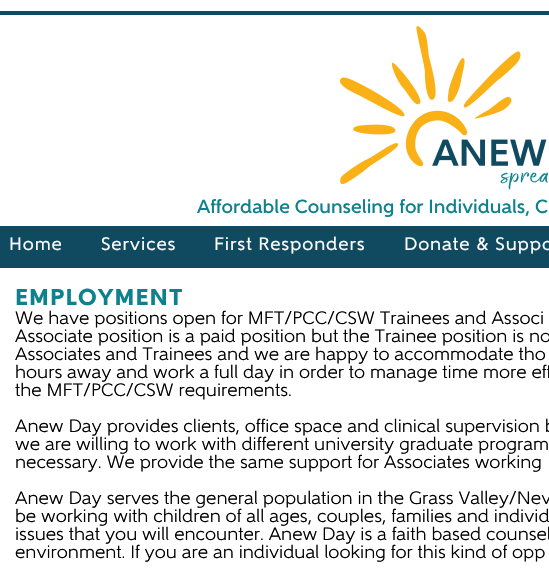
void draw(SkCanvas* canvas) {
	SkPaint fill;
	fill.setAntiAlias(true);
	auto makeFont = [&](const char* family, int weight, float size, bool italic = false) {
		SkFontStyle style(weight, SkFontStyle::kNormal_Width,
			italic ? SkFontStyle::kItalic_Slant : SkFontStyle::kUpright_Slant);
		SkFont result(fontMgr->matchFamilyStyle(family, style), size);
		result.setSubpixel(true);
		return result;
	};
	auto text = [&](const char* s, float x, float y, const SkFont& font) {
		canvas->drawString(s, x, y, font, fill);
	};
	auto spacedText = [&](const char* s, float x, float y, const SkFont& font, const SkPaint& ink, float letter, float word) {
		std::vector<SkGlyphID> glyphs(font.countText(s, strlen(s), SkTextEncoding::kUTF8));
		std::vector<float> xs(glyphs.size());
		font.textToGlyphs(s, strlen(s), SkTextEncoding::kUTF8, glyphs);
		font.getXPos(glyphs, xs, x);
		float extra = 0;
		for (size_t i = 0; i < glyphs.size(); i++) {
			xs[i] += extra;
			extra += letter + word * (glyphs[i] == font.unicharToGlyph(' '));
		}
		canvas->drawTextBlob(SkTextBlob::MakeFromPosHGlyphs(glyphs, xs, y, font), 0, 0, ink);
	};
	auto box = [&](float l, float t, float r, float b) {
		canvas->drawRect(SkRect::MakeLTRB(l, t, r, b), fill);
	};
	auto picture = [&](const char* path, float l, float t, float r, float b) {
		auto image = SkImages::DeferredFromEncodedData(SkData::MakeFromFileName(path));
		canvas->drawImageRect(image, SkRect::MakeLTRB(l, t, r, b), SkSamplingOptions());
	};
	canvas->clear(0xFFFFFFFF);
	fill.setColor(0xFF0F4A60);
	box(0, 11, 549, 15);
	picture("image0.png", 340, 26, 549, 190);
	box(0, 226, 549, 268);
	auto font1 = makeFont("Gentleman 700", 500, 19);
	fill.setColor(0xFF0D828E);
	text("Affordable Counseling for Individuals, C", 197, 213, font1);
	auto font2 = makeFont("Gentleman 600", 400, 18);
	fill.setColor(0xFFFFFFFF);
	spacedText("Home", 9, 250, font2, fill, 0.9f, 0);
	spacedText("Services", 101, 250, font2, fill, 0.9f, 0);
	spacedText("First Responders", 214, 250, font2, fill, 0.9f, 0);
	spacedText("Donate & Suppo", 404, 250, font2, fill, 0.9f, 0);
	auto font3 = makeFont("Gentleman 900", 900, 23);
	fill.setColor(0xFF0D828E);
	spacedText("EMPLOYMENT", 15, 305, font3, fill, 1.1f, 0);
	auto font4 = makeFont("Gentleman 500", 400, 18);
	fill.setColor(0xFF000000);
	text("We have positions open for MFT/PCC/CSW Trainees and Associ", 15, 324, font4);
	text("Associate position is a paid position but the Trainee position is no", 15, 342, font4);
	text("Associates and Trainees and we are happy to accommodate tho", 15, 360, font4);
	text("hours away and work a full day in order to manage time more eff", 15, 378, font4);
	text("the MFT/PCC/CSW requirements.", 15, 396, font4);
	text("Anew Day provides clients, office space and clinical supervision b", 15, 432, font4);
	text("we are willing to work with different university graduate program", 15, 450, font4);
	text("necessary. We provide the same support for Associates working", 15, 468, font4);
	text("Anew Day serves the general population in the Grass Valley/Nev", 15, 504, font4);
	text("be working with children of all ages, couples, families and individ", 15, 522, font4);
	text("issues that you will encounter. Anew Day is a faith based counsel", 15, 540, font4);
	text("environment. If you are an individual looking for this kind of opp", 15, 558, font4);
}
